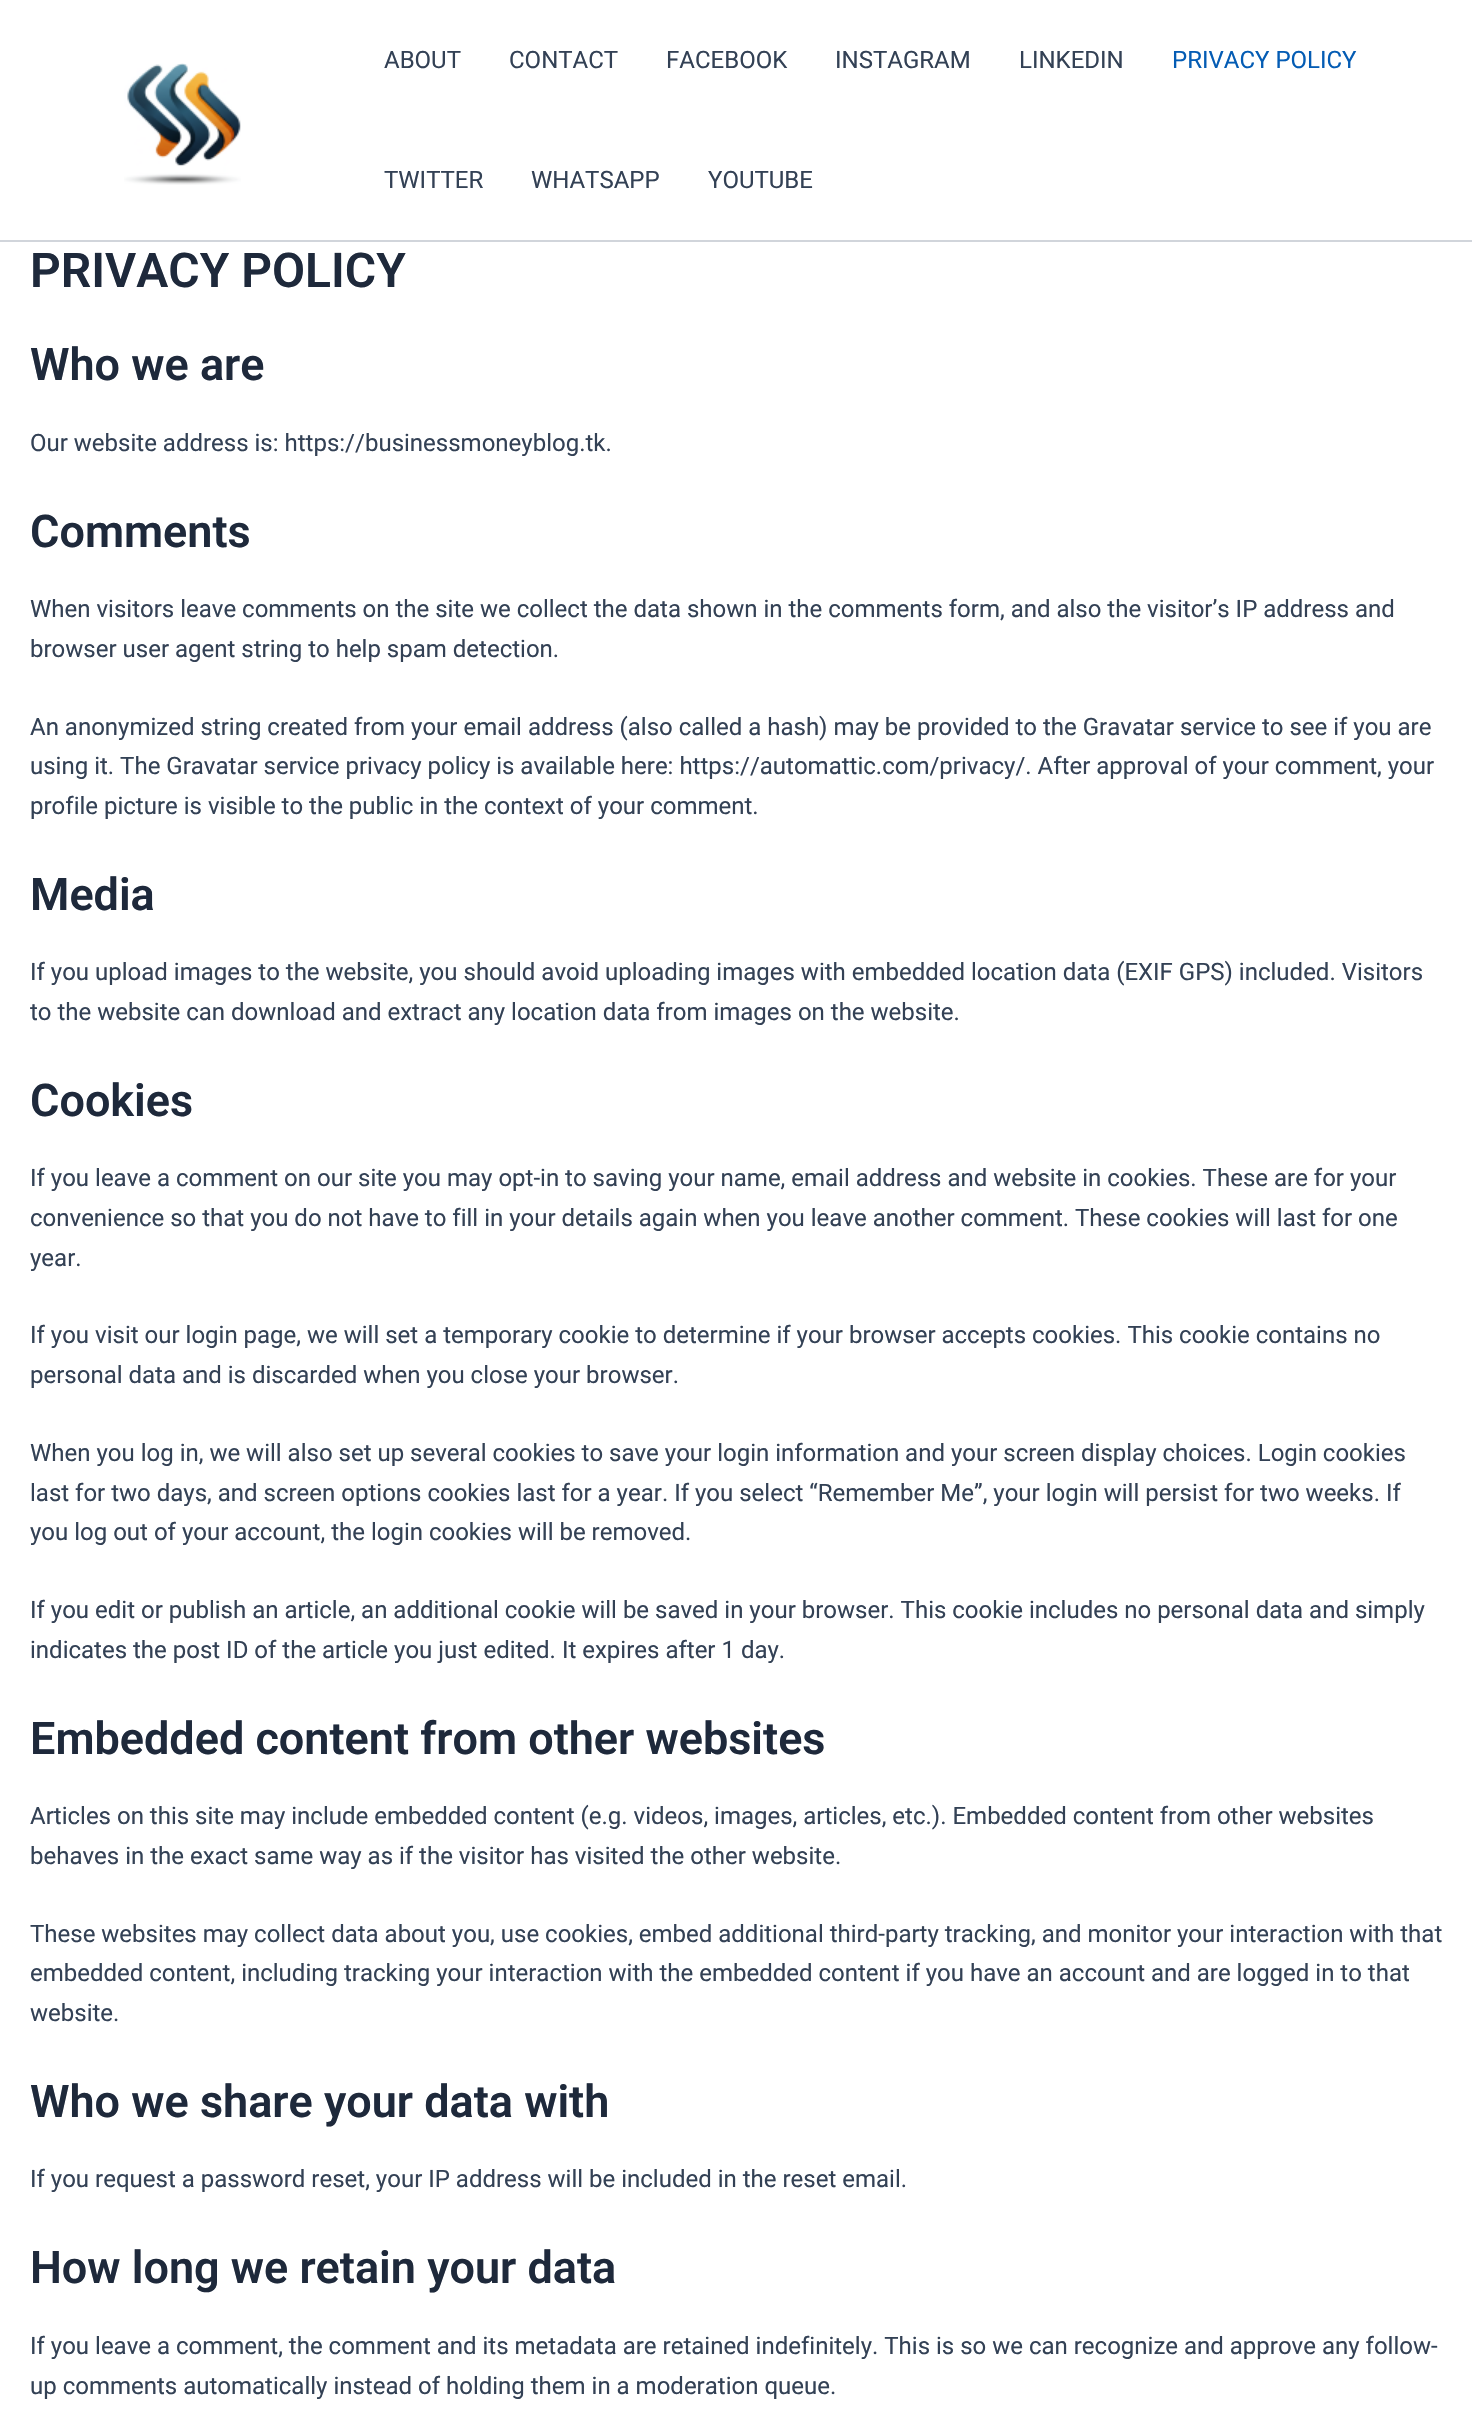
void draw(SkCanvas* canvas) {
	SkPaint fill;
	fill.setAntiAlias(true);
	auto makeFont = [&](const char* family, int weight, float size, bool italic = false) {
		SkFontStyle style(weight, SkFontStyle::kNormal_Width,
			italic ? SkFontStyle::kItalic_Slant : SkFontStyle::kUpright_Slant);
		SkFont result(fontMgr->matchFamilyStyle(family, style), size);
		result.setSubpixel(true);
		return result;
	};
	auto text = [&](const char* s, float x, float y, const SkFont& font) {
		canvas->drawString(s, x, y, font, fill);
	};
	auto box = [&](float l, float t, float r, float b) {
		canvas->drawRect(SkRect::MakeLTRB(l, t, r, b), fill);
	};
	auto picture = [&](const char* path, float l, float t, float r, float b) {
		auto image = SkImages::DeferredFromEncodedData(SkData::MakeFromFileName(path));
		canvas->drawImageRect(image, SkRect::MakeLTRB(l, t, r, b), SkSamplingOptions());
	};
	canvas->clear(0xFFFFFFFF);
	fill.setColor(0xFFD1D5DB);
	box(0, 240, 1472, 242);
	picture("image0.png", 124, 63, 241, 185);
	auto font1 = makeFont("Roboto", 400, 24);
	fill.setColor(0xFF334155);
	text("ABOUT", 384, 68, font1);
	text("CONTACT", 509, 68, font1);
	text("FACEBOOK", 666, 68, font1);
	text("INSTAGRAM", 835, 68, font1);
	text("LINKEDIN", 1019, 68, font1);
	fill.setColor(0xFF045CB4);
	text("PRIVACY POLICY", 1172, 68, font1);
	fill.setColor(0xFF334155);
	text("TWITTER", 384, 188, font1);
	text("WHATSAPP", 531, 188, font1);
	text("YOUTUBE", 708, 188, font1);
	auto font2 = makeFont("Roboto", 600, 48);
	fill.setColor(0xFF1E293B);
	text("PRIVACY POLICY", 30, 287, font2);
	auto font3 = makeFont("Roboto", 600, 45);
	text("Who we are", 30, 380, font3);
	fill.setColor(0xFF334155);
	text("Our website address is: https://businessmoneyblog.tk.", 30, 451, font1);
	fill.setColor(0xFF1E293B);
	text("Comments", 30, 547, font3);
	fill.setColor(0xFF334155);
	text("When visitors leave comments on the site we collect the data shown in the comments form, and also the visitor’s IP address and", 30, 617, font1);
	text("browser user agent string to help spam detection.", 30, 657, font1);
	text("An anonymized string created from your email address (also called a hash) may be provided to the Gravatar service to see if you are", 30, 735, font1);
	text("using it. The Gravatar service privacy policy is available here: https://automattic.com/privacy/. After approval of your comment, your", 30, 774, font1);
	text("profile picture is visible to the public in the context of your comment.", 30, 814, font1);
	fill.setColor(0xFF1E293B);
	text("Media", 30, 910, font3);
	fill.setColor(0xFF334155);
	text("If you upload images to the website, you should avoid uploading images with embedded location data (EXIF GPS) included. Visitors", 30, 980, font1);
	text("to the website can download and extract any location data from images on the website.", 30, 1020, font1);
	fill.setColor(0xFF1E293B);
	text("Cookies", 30, 1116, font3);
	fill.setColor(0xFF334155);
	text("If you leave a comment on our site you may opt-in to saving your name, email address and website in cookies. These are for your", 30, 1186, font1);
	text("convenience so that you do not have to fill in your details again when you leave another comment. These cookies will last for one", 30, 1226, font1);
	text("year.", 30, 1266, font1);
	text("If you visit our login page, we will set a temporary cookie to determine if your browser accepts cookies. This cookie contains no", 30, 1343, font1);
	text("personal data and is discarded when you close your browser.", 30, 1383, font1);
	text("When you log in, we will also set up several cookies to save your login information and your screen display choices. Login cookies", 30, 1461, font1);
	text("last for two days, and screen options cookies last for a year. If you select “Remember Me”, your login will persist for two weeks. If", 30, 1501, font1);
	text("you log out of your account, the login cookies will be removed.", 30, 1540, font1);
	text("If you edit or publish an article, an additional cookie will be saved in your browser. This cookie includes no personal data and simply", 30, 1618, font1);
	text("indicates the post ID of the article you just edited. It expires after 1 day.", 30, 1658, font1);
	fill.setColor(0xFF1E293B);
	text("Embedded content from other websites", 30, 1754, font3);
	fill.setColor(0xFF334155);
	text("Articles on this site may include embedded content (e.g. videos, images, articles, etc.). Embedded content from other websites", 30, 1824, font1);
	text("behaves in the exact same way as if the visitor has visited the other website.", 30, 1864, font1);
	text("These websites may collect data about you, use cookies, embed additional third-party tracking, and monitor your interaction with that", 30, 1942, font1);
	text("embedded content, including tracking your interaction with the embedded content if you have an account and are logged in to that", 30, 1981, font1);
	text("website.", 30, 2021, font1);
	fill.setColor(0xFF1E293B);
	text("Who we share your data with", 30, 2117, font3);
	fill.setColor(0xFF334155);
	text("If you request a password reset, your IP address will be included in the reset email.", 30, 2187, font1);
	fill.setColor(0xFF1E293B);
	text("How long we retain your data", 30, 2283, font3);
	fill.setColor(0xFF334155);
	text("If you leave a comment, the comment and its metadata are retained indefinitely. This is so we can recognize and approve any follow-", 30, 2354, font1);
	text("up comments automatically instead of holding them in a moderation queue.", 30, 2394, font1);
}
